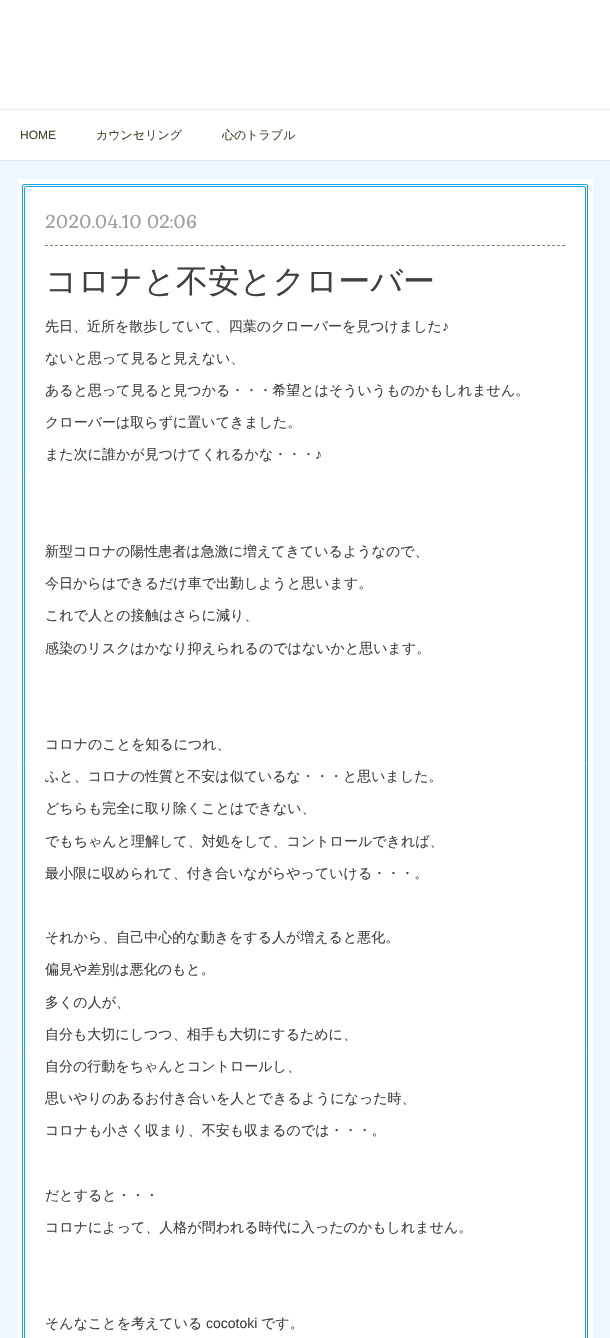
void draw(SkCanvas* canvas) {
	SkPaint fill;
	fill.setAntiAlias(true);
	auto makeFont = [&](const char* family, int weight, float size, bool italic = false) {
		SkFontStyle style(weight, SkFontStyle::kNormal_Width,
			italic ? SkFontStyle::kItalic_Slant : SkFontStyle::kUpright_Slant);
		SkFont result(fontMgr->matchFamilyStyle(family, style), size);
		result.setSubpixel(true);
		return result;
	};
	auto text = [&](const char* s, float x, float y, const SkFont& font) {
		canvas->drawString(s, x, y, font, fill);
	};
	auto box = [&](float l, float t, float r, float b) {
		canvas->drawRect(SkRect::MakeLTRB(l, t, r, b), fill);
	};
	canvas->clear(0xFFEDF5FF);
	fill.setColor(0xFFFFFFFF);
	box(0, 0, 610, 109);
	fill.setColor(0xFFEEEEEE);
	box(0, 109, 610, 110);
	fill.setColor(0xFFFFFFFF);
	box(0, 110, 610, 160);
	fill.setColor(0xFFE6E6E6);
	box(0, 160, 610, 161);
	fill.setColor(0xFFFFFFFF);
	box(17, 179, 593, 1338);
	fill.setStyle(SkPaint::kStroke_Style);
	fill.setStrokeWidth(1);
	fill.setColor(0xFF13A3EB);
	canvas->drawRoundRect(SkRect::MakeLTRB(22.5f, 184.5f, 587.5f, 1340.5f), 1.5f, 1.5f, fill);
	canvas->drawRoundRect(SkRect::MakeLTRB(24.5f, 186.5f, 585.5f, 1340.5f), 1.5f, 1.5f, fill);
	fill.setColor(0xFF85806B);
	fill.setPathEffect(SkDashPathEffect::Make({{3, 2.02f}}, 0));
	canvas->drawPath(SkPathBuilder().moveTo(45, 245.5f).lineTo(565, 245.5f).detach(), fill);
	fill.setPathEffect(nullptr);
	auto font1 = makeFont("Liberation Sans", 400, 12);
	fill.setStyle(SkPaint::kFill_Style);
	fill.setColor(0xFF47432C);
	text("HOME", 20, 139, font1);
	auto font2 = makeFont("WenQuanYi Zen Hei", 500, 12);
	text("カウンセリング", 96, 139, font2);
	text("心のトラブル", 222, 139, font2);
	auto font3 = makeFont("Gabriela", 400, 18);
	fill.setColor(0xFFA0A0A0);
	text("2020.04.10 02:06", 45, 228, font3);
	auto font4 = makeFont("WenQuanYi Zen Hei", 500, 32);
	fill.setColor(0xFF404040);
	text("コロナと不安とクローバー", 45, 292, font4);
	auto font5 = makeFont("WenQuanYi Zen Hei", 500, 14);
	text("先日、近所を散歩していて、四葉のクローバーを見つけました", 45, 331, font5);
	auto font6 = makeFont("Liberation Sans", 400, 14);
	text("♪", 442, 331, font6);
	text("ないと思って見ると見えない、", 45, 363, font5);
	text("あると思って見ると見つかる・・・希望とはそういうものかもしれません。", 45, 395, font5);
	text("クローバーは取らずに置いてきました。", 45, 427, font5);
	text("また次に誰かが見つけてくれるかな・・・", 45, 459, font5);
	text("♪", 315, 459, font6);
	text("新型コロナの陽性患者は急激に増えてきているようなので、", 45, 556, font5);
	text("今日からはできるだけ車で出勤しようと思います。", 45, 588, font5);
	text("これで人との接触はさらに減り、", 45, 620, font5);
	text("感染のリスクはかなり抑えられるのではないかと思います。", 45, 653, font5);
	text("コロナのことを知るにつれ、", 45, 749, font5);
	text("ふと、コロナの性質と不安は似ているな・・・と思いました。", 45, 781, font5);
	text("どちらも完全に取り除くことはできない、", 45, 813, font5);
	text("でもちゃんと理解して、対処をして、コントロールできれば、", 45, 846, font5);
	text("最小限に収められて、付き合いながらやっていける・・・。", 45, 878, font5);
	text("それから、自己中心的な動きをする人が増えると悪化。", 45, 942, font5);
	text("偏見や差別は悪化のもと。", 45, 974, font5);
	text("多くの人が、", 45, 1007, font5);
	text("自分も大切にしつつ、相手も大切にするために、", 45, 1039, font5);
	text("自分の行動をちゃんとコントロールし、", 45, 1071, font5);
	text("思いやりのあるお付き合いを人とできるようになった時、", 45, 1103, font5);
	text("コロナも小さく収まり、不安も収まるのでは・・・。", 45, 1135, font5);
	text("だとすると・・・", 45, 1200, font5);
	text("コロナによって、人格が問われる時代に入ったのかもしれません。", 45, 1232, font5);
	text("そんなことを考えている", 45, 1328, font5);
	text("cocotoki", 206, 1328, font6);
	text("です。", 261, 1328, font5);
}
